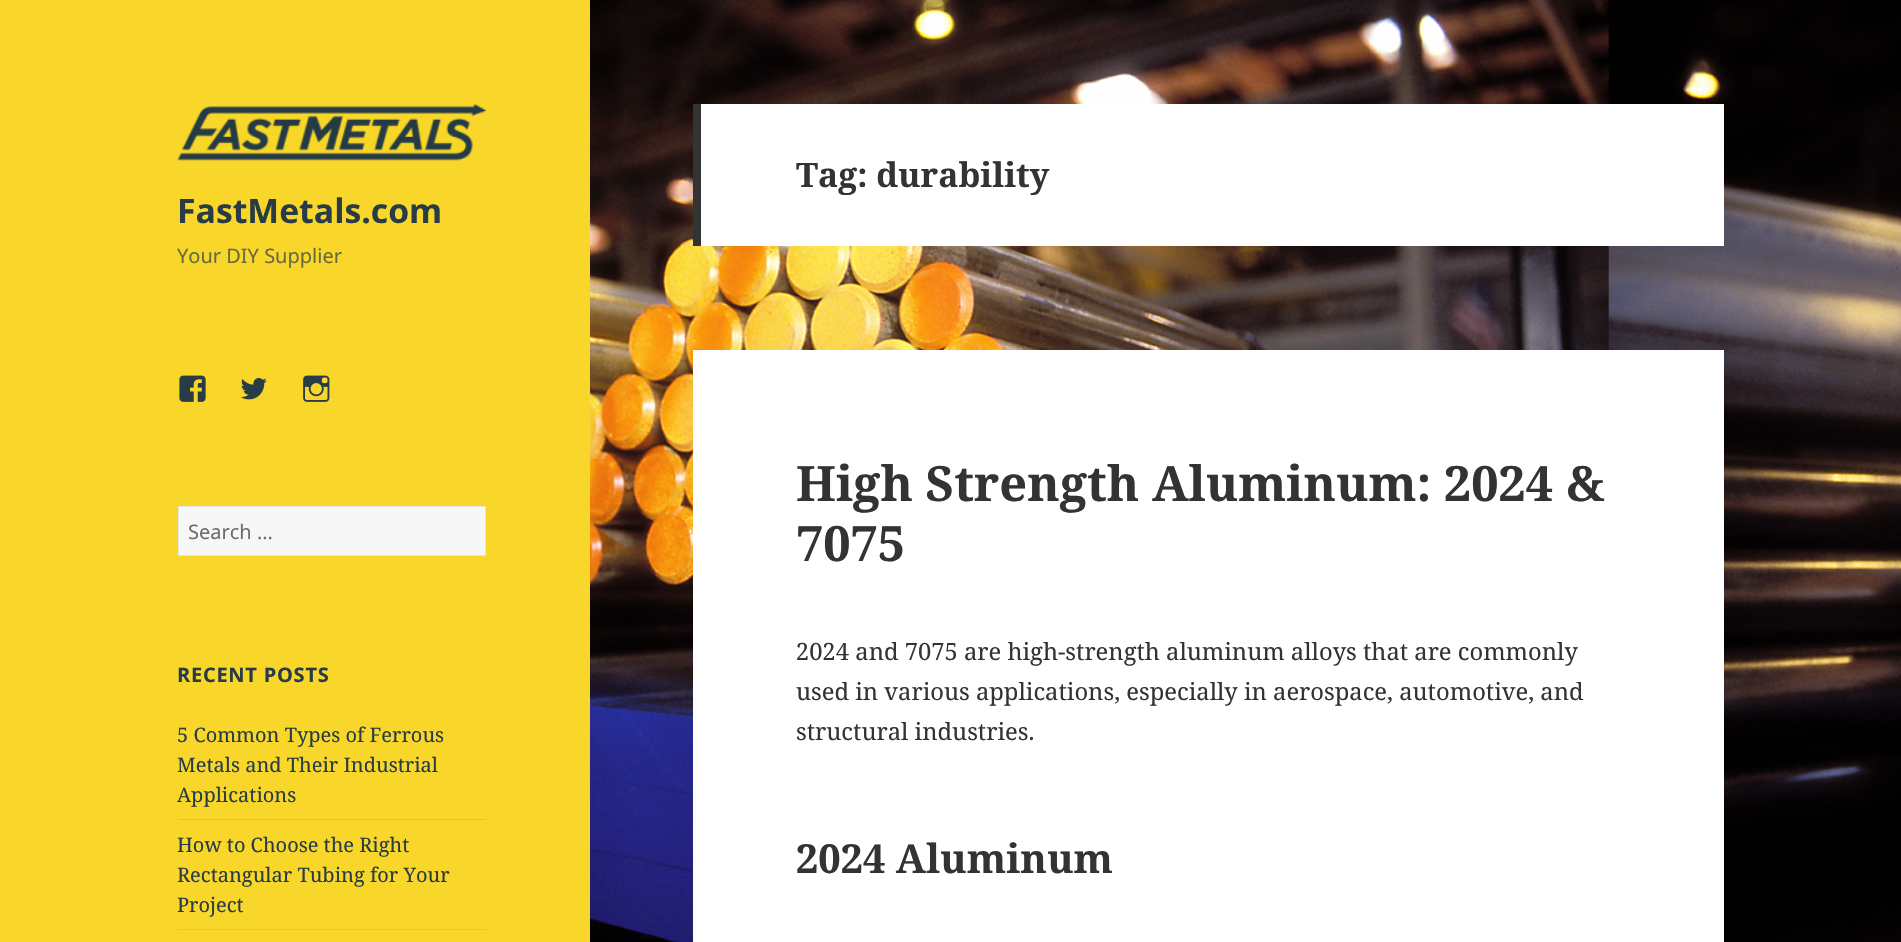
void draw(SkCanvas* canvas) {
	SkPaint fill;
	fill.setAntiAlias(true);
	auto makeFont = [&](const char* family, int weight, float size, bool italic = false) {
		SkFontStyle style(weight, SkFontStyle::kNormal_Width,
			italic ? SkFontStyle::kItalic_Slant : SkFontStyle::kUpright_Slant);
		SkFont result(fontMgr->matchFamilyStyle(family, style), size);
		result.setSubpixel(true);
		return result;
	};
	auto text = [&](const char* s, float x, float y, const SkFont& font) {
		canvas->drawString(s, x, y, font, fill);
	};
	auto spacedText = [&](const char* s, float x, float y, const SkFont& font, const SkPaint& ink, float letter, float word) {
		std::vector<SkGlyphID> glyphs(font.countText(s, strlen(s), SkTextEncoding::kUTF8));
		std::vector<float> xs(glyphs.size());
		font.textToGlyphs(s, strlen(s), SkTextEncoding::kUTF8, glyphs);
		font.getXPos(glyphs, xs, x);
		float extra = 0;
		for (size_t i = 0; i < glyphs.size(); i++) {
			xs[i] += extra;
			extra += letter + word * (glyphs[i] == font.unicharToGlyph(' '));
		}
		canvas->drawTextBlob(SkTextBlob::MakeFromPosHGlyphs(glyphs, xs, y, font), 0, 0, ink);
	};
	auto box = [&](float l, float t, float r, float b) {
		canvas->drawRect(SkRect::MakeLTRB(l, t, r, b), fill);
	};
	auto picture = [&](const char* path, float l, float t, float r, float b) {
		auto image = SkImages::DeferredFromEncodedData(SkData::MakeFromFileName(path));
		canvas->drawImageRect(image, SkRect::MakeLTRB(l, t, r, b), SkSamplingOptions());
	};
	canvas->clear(0xFFFFFFFF);
	picture("image0.png", 590, 0, 1901, 942);
	fill.setColor(0xFFF9D62A);
	box(0, 0, 590, 942);
	picture("image1.png", 177, 103, 487, 161);
	picture("image2.png", 179, 375, 206, 402);
	picture("image3.png", 241, 378, 267, 400);
	picture("image4.png", 303, 375, 330, 402);
	fill.setColor(0xFFF7F7F7);
	canvas->drawRect(SkRect::MakeLTRB(178.5f, 506.5f, 485.5f, 555.5f), fill);
	fill.setStyle(SkPaint::kStroke_Style);
	fill.setStrokeWidth(1);
	fill.setColor(0xFFE2E4E5);
	canvas->drawRect(SkRect::MakeLTRB(178.5f, 506.5f, 485.5f, 555.5f), fill);
	fill.setStyle(SkPaint::kFill_Style);
	fill.setColor(0xFFE4C72D);
	box(178, 819, 486, 820);
	box(178, 929, 486, 930);
	fill.setColor(0xFFFFFFFF);
	box(701, 104, 1724, 246);
	fill.setColor(0xFF333333);
	box(693, 104, 701, 246);
	fill.setColor(0xFFFFFFFF);
	box(693, 350, 1724, 942);
	auto font1 = makeFont("Noto Sans", 700, 33.75f);
	fill.setColor(0xFF273C46);
	text("FastMetals.com", 177, 223, font1);
	auto font2 = makeFont("Noto Sans", 400, 20);
	fill.setColor(0xFF666A3E);
	text("Your DIY Supplier", 177, 263, font2);
	fill.setColor(0xFF6E6E6E);
	text("Search …", 188, 539, font2);
	auto font3 = makeFont("Noto Sans", 700, 20);
	fill.setColor(0xFF273C46);
	spacedText("RECENT POSTS", 177, 682, font3, fill, 0.75f, 0);
	auto font4 = makeFont("Noto Serif", 400, 20);
	text("5 Common Types of Ferrous", 177, 742, font4);
	text("Metals and Their Industrial", 177, 772, font4);
	text("Applications", 177, 802, font4);
	text("How to Choose the Right", 177, 852, font4);
	text("Rectangular Tubing for Your", 177, 882, font4);
	text("Project", 177, 912, font4);
	auto font5 = makeFont("Noto Serif", 700, 33.75f);
	fill.setColor(0xFF333333);
	text("Tag: durability", 796, 187, font5);
	auto font6 = makeFont("Noto Serif", 700, 48.75f);
	text("High Strength Aluminum: 2024 &", 796, 501, font6);
	text("7075", 796, 561, font6);
	auto font7 = makeFont("Noto Serif", 400, 23.75f);
	text("2024 and 7075 are high-strength aluminum alloys that are commonly", 796, 660, font7);
	text("used in various applications, especially in aerospace, automotive, and", 796, 700, font7);
	text("structural industries.", 796, 740, font7);
	auto font8 = makeFont("Noto Serif", 700, 40);
	text("2024 Aluminum", 796, 873, font8);
}
